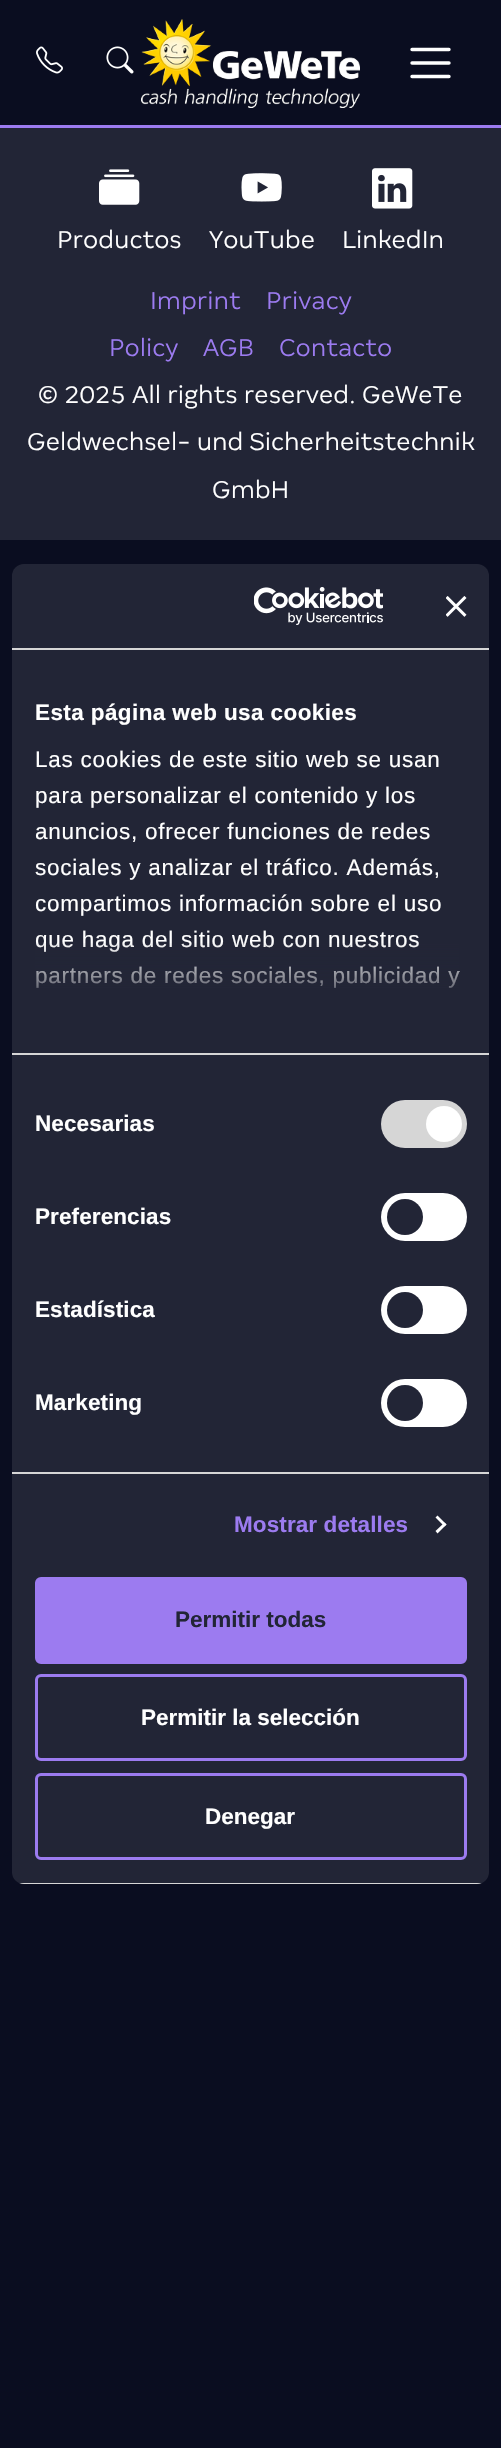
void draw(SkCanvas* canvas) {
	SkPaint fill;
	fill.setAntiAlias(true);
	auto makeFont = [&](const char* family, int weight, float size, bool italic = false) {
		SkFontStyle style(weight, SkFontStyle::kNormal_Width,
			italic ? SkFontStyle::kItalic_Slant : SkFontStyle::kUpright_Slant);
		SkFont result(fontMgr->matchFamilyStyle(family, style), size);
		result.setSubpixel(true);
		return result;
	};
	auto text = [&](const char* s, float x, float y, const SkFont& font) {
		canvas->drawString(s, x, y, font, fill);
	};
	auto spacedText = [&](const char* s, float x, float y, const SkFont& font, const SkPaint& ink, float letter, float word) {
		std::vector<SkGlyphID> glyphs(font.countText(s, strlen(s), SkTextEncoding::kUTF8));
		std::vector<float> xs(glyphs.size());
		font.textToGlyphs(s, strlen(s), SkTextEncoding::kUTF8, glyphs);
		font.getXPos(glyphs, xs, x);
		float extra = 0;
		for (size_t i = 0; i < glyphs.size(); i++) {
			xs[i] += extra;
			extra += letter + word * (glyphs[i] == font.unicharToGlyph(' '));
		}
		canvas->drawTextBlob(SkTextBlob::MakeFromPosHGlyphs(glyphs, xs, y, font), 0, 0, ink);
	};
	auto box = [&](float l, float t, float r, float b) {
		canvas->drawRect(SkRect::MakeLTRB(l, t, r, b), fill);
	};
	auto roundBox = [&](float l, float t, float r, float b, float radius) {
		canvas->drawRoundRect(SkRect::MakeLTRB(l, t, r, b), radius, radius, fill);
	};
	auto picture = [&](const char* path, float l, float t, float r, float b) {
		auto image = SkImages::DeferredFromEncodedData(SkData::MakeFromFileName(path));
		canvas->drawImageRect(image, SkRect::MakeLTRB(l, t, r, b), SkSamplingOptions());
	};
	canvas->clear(0xFF0A0D20);
	fill.setColor(0xFF9C7BF0);
	box(0, 125, 501, 128);
	picture("image0.png", 141, 19, 360, 108);
	picture("image1.png", 36, 46, 63, 74);
	picture("image2.png", 106, 46, 134, 74);
	picture("image3.png", 141, 19, 360, 108);
	fill.setStyle(SkPaint::kStroke_Style);
	fill.setStrokeWidth(3.4f);
	fill.setStrokeCap(SkPaint::kRound_Cap);
	fill.setColor(0xFFFFFFFF);
	canvas->drawPath(SkPathBuilder().moveTo(412, 49.5f).lineTo(449, 49.5f).moveTo(412, 63).lineTo(449, 63).moveTo(412, 76.5f).lineTo(449, 76.5f).detach(), fill);
	fill.setStyle(SkPaint::kFill_Style);
	fill.setColor(0xFF222536);
	box(0, 128, 501, 540);
	picture("image4.png", 99, 169, 140, 205);
	picture("image5.png", 241, 173, 282, 202);
	picture("image6.png", 372, 168, 413, 209);
	roundBox(12, 564, 489, 1884, 12);
	fill.setColor(0xFFD6D6D6);
	box(12, 648, 489, 650);
	picture("image7.png", 254, 587, 383, 625);
	picture("image8.png", 446, 596, 467, 617);
	box(12, 1053, 489, 1055);
	box(12, 1472, 489, 1474);
	roundBox(381, 1100, 467, 1148, 24);
	fill.setColor(0xFFFFFFFF);
	canvas->drawCircle(444, 1124, 18, fill);
	roundBox(381, 1193, 467, 1241, 24);
	fill.setColor(0xFF222536);
	canvas->drawCircle(405, 1217, 18, fill);
	fill.setColor(0xFFFFFFFF);
	roundBox(381, 1286, 467, 1334, 24);
	fill.setColor(0xFF222536);
	canvas->drawCircle(405, 1310, 18, fill);
	fill.setColor(0xFFFFFFFF);
	roundBox(381, 1379, 467, 1427, 24);
	fill.setColor(0xFF222536);
	canvas->drawCircle(405, 1403, 18, fill);
	fill.setColor(0xFFFFFFFF);
	canvas->drawPath(SkPathBuilder().moveTo(437.5f, 1515.5f).lineTo(446.5f, 1524.5f).lineTo(444.5f, 1526.5f).lineTo(435.5f, 1517.5f).close().detach(), fill);
	canvas->drawPath(SkPathBuilder().moveTo(444.5f, 1522.5f).lineTo(446.5f, 1524.5f).lineTo(437.5f, 1533.5f).lineTo(435.5f, 1531).close().detach(), fill);
	canvas->save();
	canvas->clipPath(SkPathBuilder().moveTo(24, 564).lineTo(477, 564).cubicTo(483.5f, 564, 489, 569.5f, 489, 576).lineTo(489, 1872).cubicTo(489, 1878.5f, 483.5f, 1884, 477, 1884).lineTo(24, 1884).cubicTo(17.5f, 1884, 12, 1878.5f, 12, 1872).lineTo(12, 576).cubicTo(12, 569.5f, 17.5f, 564, 24, 564).close().detach(), true);
	fill.setColor(0xFFD6D6D6);
	box(12, 1883, 489, 1884);
	canvas->restore();
	fill.setColor(0xFF9C7BF0);
	canvas->drawRoundRect(SkRect::MakeLTRB(36.5f, 1578.5f, 465.5f, 1662.5f), 4.5f, 4.5f, fill);
	fill.setStyle(SkPaint::kStroke_Style);
	fill.setStrokeWidth(3);
	fill.setStrokeCap(SkPaint::kButt_Cap);
	canvas->drawRoundRect(SkRect::MakeLTRB(36.5f, 1578.5f, 465.5f, 1662.5f), 4.5f, 4.5f, fill);
	canvas->drawRoundRect(SkRect::MakeLTRB(36.5f, 1675.5f, 465.5f, 1759.5f), 4.5f, 4.5f, fill);
	canvas->drawRoundRect(SkRect::MakeLTRB(36.5f, 1774.5f, 465.5f, 1858.5f), 4.5f, 4.5f, fill);
	auto font1 = makeFont("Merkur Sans", 300, 27);
	fill.setStyle(SkPaint::kFill_Style);
	fill.setColor(0xFFFFFFFF);
	text("Productos", 57, 248, font1);
	text("YouTube", 209, 248, font1);
	text("LinkedIn", 342, 248, font1);
	fill.setColor(0xFF9C7BF0);
	text("Imprint", 150, 309, font1);
	text("Privacy", 266, 309, font1);
	text("Policy", 109, 356, font1);
	text("AGB", 203, 356, font1);
	text("Contacto", 279, 356, font1);
	fill.setColor(0xFFFFFFFF);
	text("© 2025 All rights reserved. GeWeTe", 38, 403, font1);
	text("Geldwechsel- und Sicherheitstechnik", 27, 450, font1);
	text("GmbH", 212, 498, font1);
	auto font2 = makeFont("Liberation Sans", 700, 22.5f);
	spacedText("Esta página web usa cookies", 35, 720, font2, fill, 0.4f, 0);
	auto font3 = makeFont("Liberation Sans", 400, 22.5f);
	spacedText("Las cookies de este sitio web se usan", 35, 767, font3, fill, 0.75f, 0);
	spacedText("para personalizar el contenido y los", 35, 803, font3, fill, 0.75f, 0);
	spacedText("anuncios, ofrecer funciones de redes", 35, 839, font3, fill, 0.75f, 0);
	spacedText("sociales y analizar el tráfico. Además,", 35, 875, font3, fill, 0.75f, 0);
	spacedText("compartimos información sobre el uso", 35, 911, font3, fill, 0.75f, 0);
	spacedText("que haga del sitio web con nuestros", 35, 947, font3, fill, 0.75f, 0);
	spacedText("partners de redes sociales, publicidad y", 35, 983, font3, fill, 0.75f, 0);
	{
		const SkColor colors[] = {0xFF222536, 0xCC222536, 0x00222536};
		const float stops[] = {0, 0.5f, 1};
		const SkPoint ends[] = {{241, 1053}, {241, 941}};
		fill.setShader(SkGradientShader::MakeLinear(ends, colors, stops, 3, SkTileMode::kClamp));
		fill.setAlpha(255);
	}
	box(35, 943, 459, 988);
	fill.setShader(nullptr);
	fill.setColor(0xFFFFFFFF);
	spacedText("Necesarias", 35, 1131, font2, fill, 0.1f, 0);
	spacedText("Preferencias", 35, 1224, font2, fill, 0.1f, 0);
	spacedText("Estadística", 35, 1317, font2, fill, 0.1f, 0);
	spacedText("Marketing", 35, 1410, font2, fill, 0.1f, 0);
	fill.setColor(0xFF9C7BF0);
	spacedText("Mostrar detalles", 234, 1532, font2, fill, 0.1f, 0);
	fill.setColor(0xFF222536);
	text("Permitir todas", 175, 1627, font2);
	fill.setColor(0xFFFFFFFF);
	text("Permitir la selección", 141, 1725, font2);
	text("Denegar", 205, 1824, font2);
}
